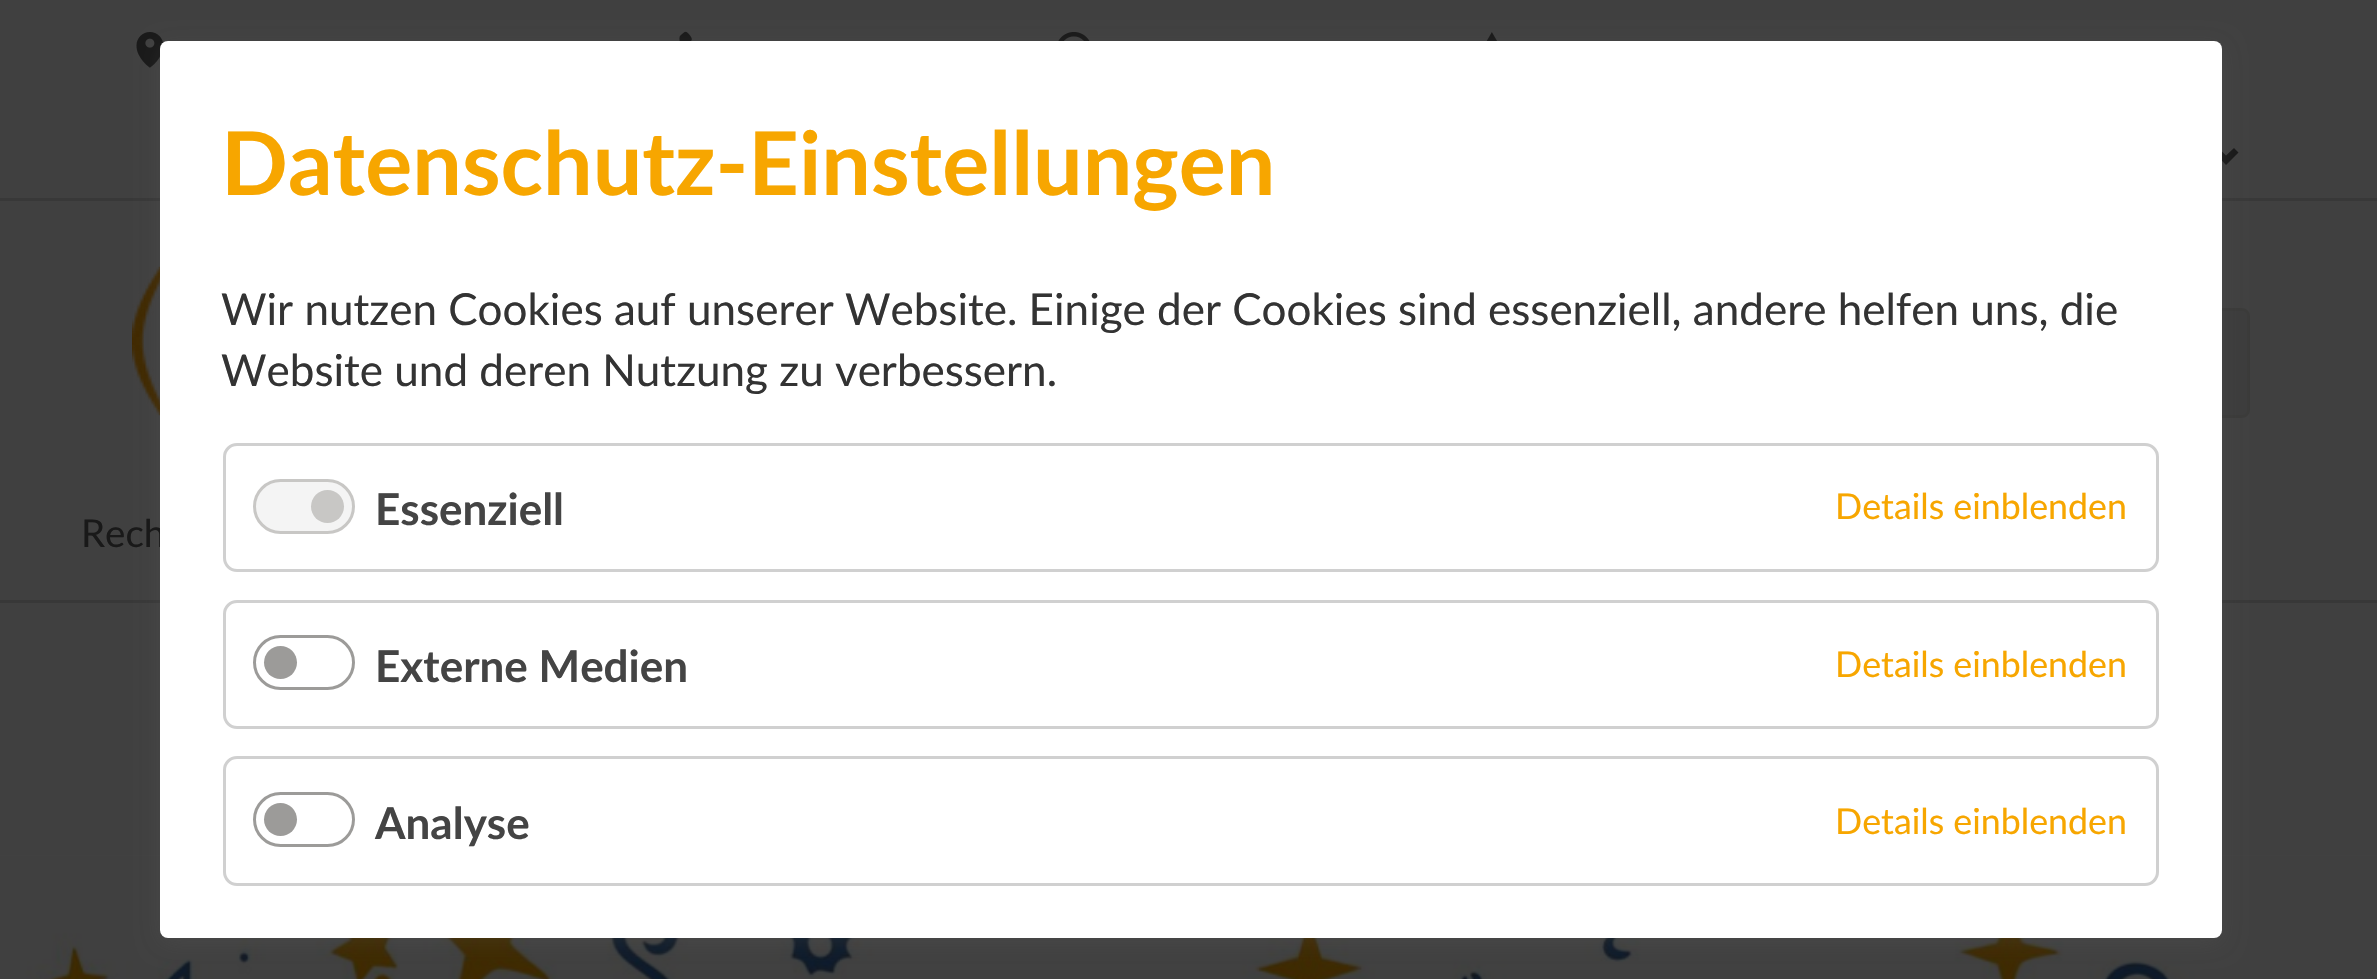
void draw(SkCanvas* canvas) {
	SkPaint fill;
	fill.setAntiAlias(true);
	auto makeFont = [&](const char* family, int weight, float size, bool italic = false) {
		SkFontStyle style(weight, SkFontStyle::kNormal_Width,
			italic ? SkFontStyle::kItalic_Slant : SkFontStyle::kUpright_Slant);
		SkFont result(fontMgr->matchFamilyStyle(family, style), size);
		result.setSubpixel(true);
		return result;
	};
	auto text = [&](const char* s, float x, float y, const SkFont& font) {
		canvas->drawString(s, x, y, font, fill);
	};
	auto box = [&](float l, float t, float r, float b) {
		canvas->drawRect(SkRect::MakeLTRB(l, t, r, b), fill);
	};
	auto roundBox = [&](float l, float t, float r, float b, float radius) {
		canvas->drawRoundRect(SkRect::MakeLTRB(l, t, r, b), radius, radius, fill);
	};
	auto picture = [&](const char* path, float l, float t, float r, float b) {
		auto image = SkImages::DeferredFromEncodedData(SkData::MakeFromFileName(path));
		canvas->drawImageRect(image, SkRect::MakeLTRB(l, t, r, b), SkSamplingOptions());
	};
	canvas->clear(0xFF404040);
	fill.setColor(0xFF383838);
	box(0, 198, 2377, 201);
	picture("image0.png", 136, 32, 163, 68);
	picture("image1.png", 679, 31, 692, 41);
	picture("image2.png", 1058, 32, 1090, 41);
	picture("image3.png", 1486, 32, 1497, 41);
	fill.setColor(0xFF191919);
	canvas->drawPath(SkPathBuilder().moveTo(2238.5f, 152.5f).lineTo(2234, 148).lineTo(2226, 155.5f).lineTo(2218.5f, 148).lineTo(2214, 152.5f).lineTo(2226, 165).close().detach(), fill);
	fill.setColor(0xFF383838);
	box(0, 600, 2377, 603);
	picture("image4.png", 132, 266, 160, 416);
	fill.setColor(0xFF3C3C3C);
	canvas->drawRoundRect(SkRect::MakeLTRB(1725.5f, 309.5f, 2248.5f, 416.5f), 6.5f, 6.5f, fill);
	fill.setStyle(SkPaint::kStroke_Style);
	fill.setStrokeWidth(3);
	fill.setColor(0xFF3A3A39);
	canvas->drawRoundRect(SkRect::MakeLTRB(1725.5f, 309.5f, 2248.5f, 416.5f), 6.5f, 6.5f, fill);
	picture("image5.png", 0, 855, 2377, 979);
	fill.setStyle(SkPaint::kFill_Style);
	fill.setColor(0x33636363);
	fill.setMaskFilter(SkMaskFilter::MakeBlur(kNormal_SkBlurStyle, 11));
	canvas->drawRoundRect(SkRect::MakeLTRB(160, 47, 2222, 943), 8, 8, fill);
	fill.setMaskFilter(nullptr);
	auto font1 = makeFont("Lato", 400, 38.5f);
	fill.setColor(0xFF191919);
	text("Rech", 81, 547, font1);
	fill.setColor(0xFFFFFFFF);
	roundBox(160, 41, 2222, 938, 8);
	auto font2 = makeFont("Lato", 700, 88);
	fill.setColor(0xFFF7A600);
	text("Datenschutz-Einstellungen", 221, 195, font2);
	auto font3 = makeFont("Lato", 400, 44);
	fill.setColor(0xFF333333);
	text("Wir nutzen Cookies auf unserer Website. Einige der Cookies sind essenziell, andere helfen uns, die", 221, 325, font3);
	text("Website und deren Nutzung zu verbessern.", 221, 386, font3);
	fill.setStyle(SkPaint::kStroke_Style);
	fill.setColor(0xFFD0D0D0);
	canvas->drawRoundRect(SkRect::MakeLTRB(224.5f, 444.5f, 2157.5f, 570.5f), 12.5f, 12.5f, fill);
	fill.setStyle(SkPaint::kFill_Style);
	fill.setColor(0xFFF4F4F4);
	canvas->drawRoundRect(SkRect::MakeLTRB(254.5f, 480.5f, 353.5f, 532.5f), 26, 26, fill);
	fill.setStyle(SkPaint::kStroke_Style);
	fill.setColor(0xFFC8C7C5);
	canvas->drawRoundRect(SkRect::MakeLTRB(254.5f, 480.5f, 353.5f, 532.5f), 26, 26, fill);
	fill.setStyle(SkPaint::kFill_Style);
	canvas->drawCircle(327.5f, 506.5f, 16.5f, fill);
	auto font4 = makeFont("Lato", 700, 44);
	fill.setColor(0xFF444444);
	text("Essenziell", 375, 525, font4);
	auto font5 = makeFont("Lato", 400, 35.75f);
	fill.setColor(0xFFF7A600);
	text("Details einblenden", 1835, 519, font5);
	fill.setStyle(SkPaint::kStroke_Style);
	fill.setColor(0xFFD0D0D0);
	canvas->drawRoundRect(SkRect::MakeLTRB(224.5f, 601.5f, 2157.5f, 727.5f), 12.5f, 12.5f, fill);
	fill.setColor(0xFF9C9B99);
	canvas->drawRoundRect(SkRect::MakeLTRB(254.5f, 636.5f, 353.5f, 688.5f), 26, 26, fill);
	fill.setStyle(SkPaint::kFill_Style);
	canvas->drawCircle(280.5f, 662.5f, 16.5f, fill);
	fill.setColor(0xFF444444);
	text("Externe Medien", 375, 682, font4);
	fill.setColor(0xFFF7A600);
	text("Details einblenden", 1835, 677, font5);
	fill.setStyle(SkPaint::kStroke_Style);
	fill.setColor(0xFFD0D0D0);
	canvas->drawRoundRect(SkRect::MakeLTRB(224.5f, 757.5f, 2157.5f, 884.5f), 12.5f, 12.5f, fill);
	fill.setColor(0xFF9C9B99);
	canvas->drawRoundRect(SkRect::MakeLTRB(254.5f, 793.5f, 353.5f, 845.5f), 26, 26, fill);
	fill.setStyle(SkPaint::kFill_Style);
	canvas->drawCircle(280.5f, 819.5f, 16.5f, fill);
	fill.setColor(0xFF444444);
	text("Analyse", 375, 839, font4);
	fill.setColor(0xFFF7A600);
	text("Details einblenden", 1835, 834, font5);
}
